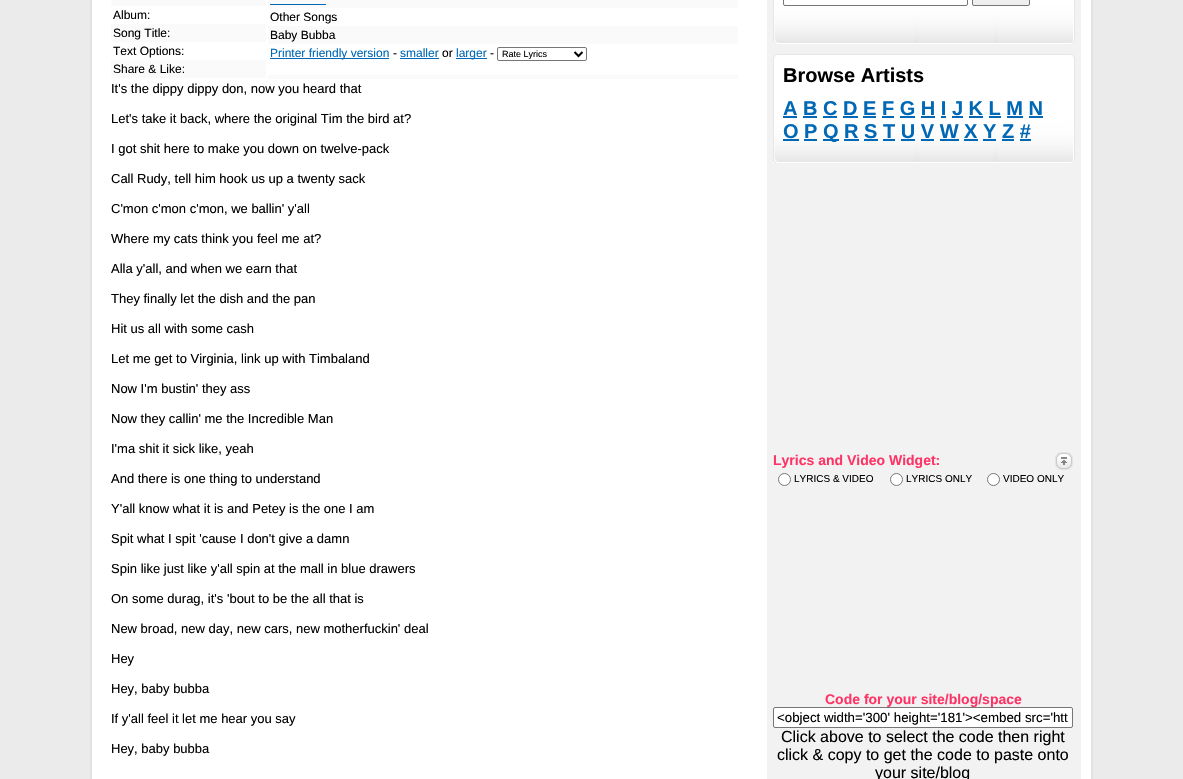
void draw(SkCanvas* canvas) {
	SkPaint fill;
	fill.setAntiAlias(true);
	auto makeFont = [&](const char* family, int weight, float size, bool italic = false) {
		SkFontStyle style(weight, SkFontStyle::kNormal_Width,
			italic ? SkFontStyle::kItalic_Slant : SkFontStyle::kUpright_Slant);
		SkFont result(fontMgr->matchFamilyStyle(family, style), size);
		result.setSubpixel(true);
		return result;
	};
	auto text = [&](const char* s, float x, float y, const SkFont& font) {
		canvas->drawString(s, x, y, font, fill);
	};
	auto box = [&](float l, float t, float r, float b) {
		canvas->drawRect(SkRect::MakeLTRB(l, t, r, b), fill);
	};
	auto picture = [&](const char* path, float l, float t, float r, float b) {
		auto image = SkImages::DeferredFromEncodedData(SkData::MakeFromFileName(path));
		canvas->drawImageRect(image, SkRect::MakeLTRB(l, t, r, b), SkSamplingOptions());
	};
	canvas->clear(0xFFEBEBEB);
	picture("image0.png", 90, 0, 1093, 779);
	fill.setColor(0xFFFAFAFA);
	box(111, 0, 266, 6);
	box(111, 24, 266, 42);
	box(111, 60, 266, 78);
	box(268, 0, 738, 8);
	fill.setColor(0xFF0068B5);
	box(270, 4, 326, 5);
	fill.setColor(0xFFFAFAFA);
	box(268, 26, 738, 44);
	fill.setColor(0xFF0068B5);
	box(270, 58, 389, 59);
	box(400, 58, 439, 59);
	box(456, 58, 487, 59);
	fill.setStyle(SkPaint::kStroke_Style);
	fill.setStrokeWidth(1);
	fill.setColor(0xFF767676);
	canvas->drawRoundRect(SkRect::MakeLTRB(497.5f, 47.5f, 586.5f, 60.5f), 1.5f, 1.5f, fill);
	fill.setStrokeWidth(2);
	fill.setColor(0xFF000000);
	canvas->drawPath(SkPathBuilder().moveTo(574.5f, 52).lineTo(578.5f, 56).lineTo(582.5f, 52).detach(), fill);
	fill.setStyle(SkPaint::kFill_Style);
	fill.setColor(0xFFFAFAFA);
	box(268, 75, 738, 79);
	fill.setColor(0xFFF2F2F2);
	box(767, 0, 1081, 779);
	picture("image1.png", 773, 0, 1075, 44);
	fill.setStyle(SkPaint::kStroke_Style);
	fill.setStrokeWidth(1);
	fill.setColor(0xFF767676);
	canvas->drawRoundRect(SkRect::MakeLTRB(783.5f, -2.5f, 967.5f, 5.5f), 1.5f, 1.5f, fill);
	fill.setStyle(SkPaint::kFill_Style);
	fill.setColor(0xFFEFEFEF);
	canvas->drawRoundRect(SkRect::MakeLTRB(972.5f, -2.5f, 1029.5f, 5.5f), 1.5f, 1.5f, fill);
	fill.setStyle(SkPaint::kStroke_Style);
	fill.setColor(0xFF767676);
	canvas->drawRoundRect(SkRect::MakeLTRB(972.5f, -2.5f, 1029.5f, 5.5f), 1.5f, 1.5f, fill);
	picture("image2.png", 773, 54, 1075, 92);
	picture("image3.png", 773, 92, 1075, 163);
	fill.setStyle(SkPaint::kFill_Style);
	fill.setColor(0xFF0068B5);
	box(783, 116, 797, 118);
	box(803, 116, 817, 118);
	box(823, 116, 837, 118);
	box(843, 116, 858, 118);
	box(863, 116, 876, 118);
	box(882, 116, 894, 118);
	box(900, 116, 915, 118);
	box(921, 116, 935, 118);
	box(941, 116, 946, 118);
	box(952, 116, 963, 118);
	box(969, 116, 983, 118);
	box(989, 116, 1001, 118);
	box(1007, 116, 1023, 118);
	box(1029, 116, 1043, 118);
	box(783, 139, 799, 141);
	box(823, 139, 839, 141);
	box(804, 139, 817, 141);
	box(844, 139, 859, 141);
	box(864, 139, 878, 141);
	box(883, 139, 895, 141);
	box(901, 139, 915, 141);
	box(921, 139, 934, 141);
	box(940, 139, 959, 141);
	box(964, 139, 978, 141);
	box(983, 139, 996, 141);
	box(1002, 139, 1014, 141);
	box(1020, 139, 1031, 141);
	picture("image4.png", 1055, 452, 1073, 470);
	fill.setColor(0xFFFFFFFF);
	canvas->drawCircle(784.5f, 479.5f, 6, fill);
	fill.setStyle(SkPaint::kStroke_Style);
	fill.setColor(0xFF767676);
	canvas->drawCircle(784.5f, 479.5f, 6, fill);
	fill.setStyle(SkPaint::kFill_Style);
	fill.setColor(0xFFFFFFFF);
	canvas->drawCircle(896.5f, 479.5f, 6, fill);
	fill.setStyle(SkPaint::kStroke_Style);
	fill.setColor(0xFF767676);
	canvas->drawCircle(896.5f, 479.5f, 6, fill);
	fill.setStyle(SkPaint::kFill_Style);
	fill.setColor(0xFFFFFFFF);
	canvas->drawCircle(993.5f, 479.5f, 6, fill);
	fill.setStyle(SkPaint::kStroke_Style);
	fill.setColor(0xFF767676);
	canvas->drawCircle(993.5f, 479.5f, 6, fill);
	fill.setStyle(SkPaint::kFill_Style);
	fill.setColor(0xFFFFFFFF);
	canvas->drawRoundRect(SkRect::MakeLTRB(773.5f, 707.5f, 1072.5f, 727.5f), 1.5f, 1.5f, fill);
	fill.setStyle(SkPaint::kStroke_Style);
	fill.setColor(0xFF767676);
	canvas->drawRoundRect(SkRect::MakeLTRB(773.5f, 707.5f, 1072.5f, 727.5f), 1.5f, 1.5f, fill);
	auto font1 = makeFont("Liberation Sans", 400, 12);
	fill.setStyle(SkPaint::kFill_Style);
	fill.setColor(0xFF000000);
	text("Album:", 113, 19, font1);
	text("Song Title:", 113, 37, font1);
	text("Text Options:", 113, 55, font1);
	text("Share & Like:", 113, 73, font1);
	text("Other Songs", 270, 21, font1);
	text("Baby Bubba", 270, 39, font1);
	fill.setColor(0xFF0068B5);
	text("Printer friendly version", 270, 57, font1);
	fill.setColor(0xFF000000);
	text("-", 393, 57, font1);
	fill.setColor(0xFF0068B5);
	text("smaller", 400, 57, font1);
	fill.setColor(0xFF000000);
	text("or", 442, 57, font1);
	fill.setColor(0xFF0068B5);
	text("larger", 456, 57, font1);
	fill.setColor(0xFF000000);
	text("-", 490, 57, font1);
	auto font2 = makeFont("Liberation Sans", 400, 9);
	text("Rate Lyrics", 502, 57, font2);
	auto font3 = makeFont("Liberation Sans", 400, 13);
	text("It's the dippy dippy don, now you heard that", 111, 93, font3);
	text("Let's take it back, where the original Tim the bird at?", 111, 123, font3);
	text("I got shit here to make you down on twelve-pack", 111, 153, font3);
	text("Call Rudy, tell him hook us up a twenty sack", 111, 183, font3);
	text("C'mon c'mon c'mon, we ballin' y'all", 111, 213, font3);
	text("Where my cats think you feel me at?", 111, 243, font3);
	text("Alla y'all, and when we earn that", 111, 273, font3);
	text("They finally let the dish and the pan", 111, 303, font3);
	text("Hit us all with some cash", 111, 333, font3);
	text("Let me get to Virginia, link up with Timbaland", 111, 363, font3);
	text("Now I'm bustin' they ass", 111, 393, font3);
	text("Now they callin' me the Incredible Man", 111, 423, font3);
	text("I'ma shit it sick like, yeah", 111, 453, font3);
	text("And there is one thing to understand", 111, 483, font3);
	text("Y'all know what it is and Petey is the one I am", 111, 513, font3);
	text("Spit what I spit 'cause I don't give a damn", 111, 543, font3);
	text("Spin like just like y'all spin at the mall in blue drawers", 111, 573, font3);
	text("On some durag, it's 'bout to be the all that is", 111, 603, font3);
	text("New broad, new day, new cars, new motherfuckin' deal", 111, 633, font3);
	text("Hey", 111, 663, font3);
	text("Hey, baby bubba", 111, 693, font3);
	text("If y'all feel it let me hear you say", 111, 723, font3);
	text("Hey, baby bubba", 111, 753, font3);
	auto font4 = makeFont("Liberation Sans", 700, 20);
	text("Browse Artists", 783, 82, font4);
	fill.setColor(0xFF0068B5);
	text("A B C D E F G H I J K L M N", 783, 115, font4);
	text("O P", 783, 138, font4);
	text("Q R S T U V W X Y Z #", 823, 138, font4);
	auto font5 = makeFont("Liberation Sans", 700, 14);
	fill.setColor(0xFFFF3366);
	text("Lyrics and Video Widget:", 773, 465, font5);
	auto font6 = makeFont("Liberation Sans", 400, 10);
	fill.setColor(0xFF000000);
	text("LYRICS & VIDEO", 794, 482, font6);
	text("LYRICS ONLY", 906, 482, font6);
	text("VIDEO ONLY", 1003, 482, font6);
	fill.setColor(0xFFFF3366);
	text("Code for your site/blog/space", 825, 704, font5);
	auto font7 = makeFont("Liberation Sans", 400, 13.3f);
	fill.setColor(0xFF000000);
	text("<object width='300' height='181'><embed src='htt", 777, 722, font7);
	auto font8 = makeFont("Liberation Sans", 400, 16);
	text("Click above to select the code then right", 781, 742, font8);
	text("click & copy to get the code to paste onto", 777, 760, font8);
	text("your site/blog", 875, 778, font8);
}
